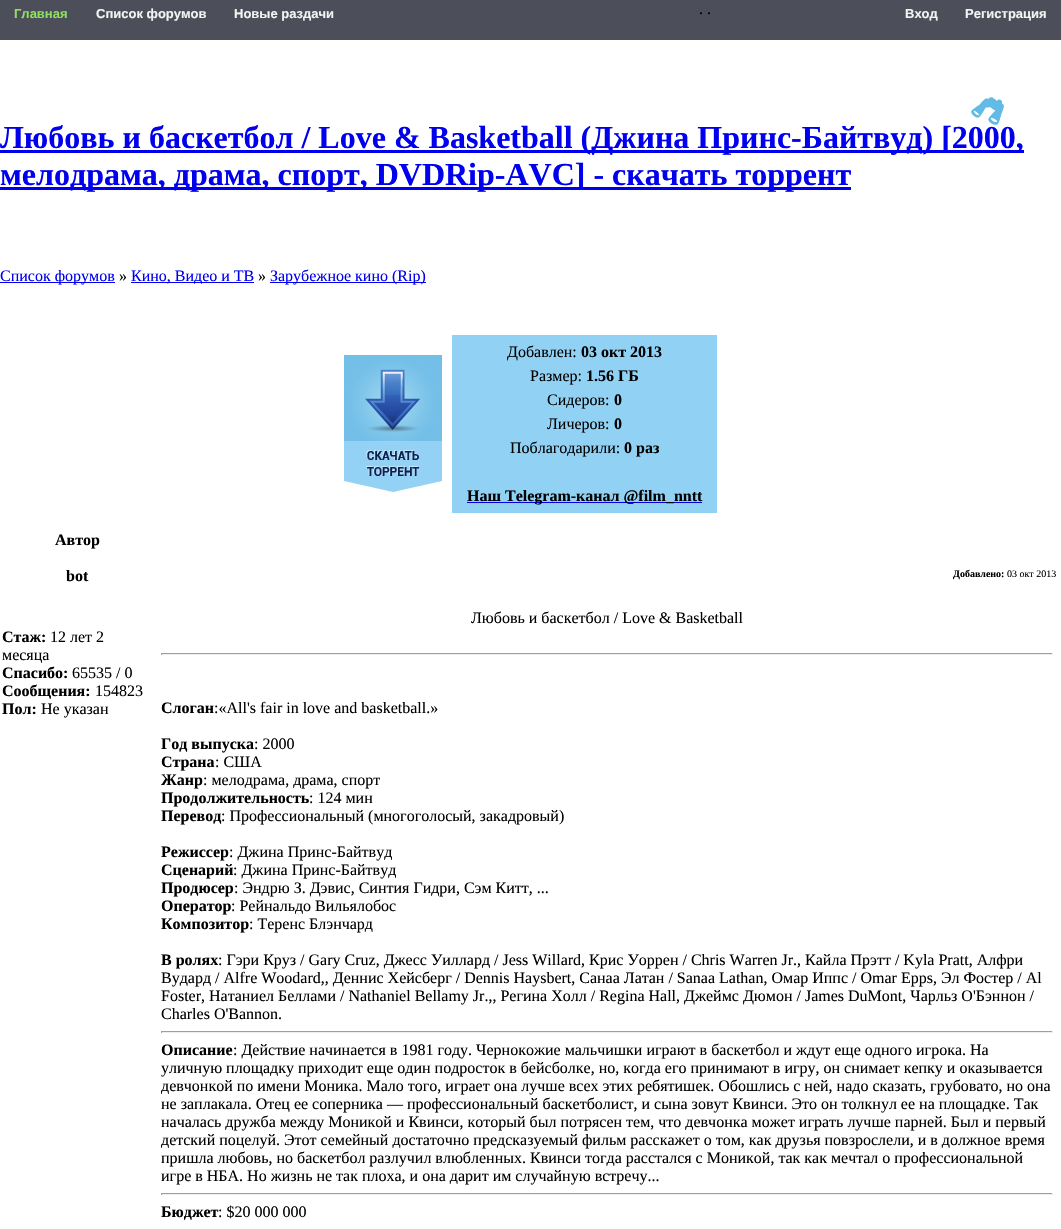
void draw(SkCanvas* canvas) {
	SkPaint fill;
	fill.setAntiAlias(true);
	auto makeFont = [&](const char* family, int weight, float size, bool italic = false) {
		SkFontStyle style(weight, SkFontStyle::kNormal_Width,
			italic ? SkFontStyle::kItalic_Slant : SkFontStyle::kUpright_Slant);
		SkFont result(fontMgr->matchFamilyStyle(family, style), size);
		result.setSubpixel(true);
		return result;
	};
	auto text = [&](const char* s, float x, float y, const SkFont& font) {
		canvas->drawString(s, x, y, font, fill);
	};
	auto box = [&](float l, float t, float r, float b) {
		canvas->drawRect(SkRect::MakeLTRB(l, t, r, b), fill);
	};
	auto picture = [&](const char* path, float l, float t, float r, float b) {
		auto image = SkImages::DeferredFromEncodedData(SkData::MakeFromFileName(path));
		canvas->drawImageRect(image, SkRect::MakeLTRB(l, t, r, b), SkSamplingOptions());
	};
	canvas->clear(0xFFFFFFFF);
	fill.setColor(0xFF4C4E5A);
	box(0, 0, 1061, 40);
	picture("image0.png", 971, 97, 1004, 125);
	fill.setColor(0xFF0000EE);
	box(0, 150, 1024, 153);
	box(0, 187, 851, 190);
	box(0, 282, 115, 283);
	box(131, 282, 254, 283);
	box(270, 282, 426, 283);
	picture("image1.png", 344, 355, 442, 492);
	fill.setColor(0xFF91D1F4);
	box(452, 335, 717, 513);
	fill.setColor(0xFF0000EE);
	box(467, 502, 702, 503);
	fill.setColor(0xFF9F9F9F);
	box(161, 653, 1053, 654);
	fill.setColor(0xFFEEEEEE);
	box(1052, 653, 1053, 655);
	box(161, 654, 1053, 655);
	fill.setColor(0xFF9F9F9F);
	box(161, 653, 162, 655);
	box(161, 1031, 1053, 1032);
	fill.setColor(0xFFEEEEEE);
	box(1052, 1031, 1053, 1033);
	box(161, 1032, 1053, 1033);
	fill.setColor(0xFF9F9F9F);
	box(161, 1031, 162, 1033);
	box(161, 1193, 1053, 1194);
	fill.setColor(0xFFEEEEEE);
	box(1052, 1193, 1053, 1195);
	box(161, 1194, 1053, 1195);
	fill.setColor(0xFF9F9F9F);
	box(161, 1193, 162, 1195);
	auto font1 = makeFont("Liberation Sans", 700, 13);
	fill.setColor(0xFF8FDE62);
	text("Главная", 14, 18, font1);
	fill.setColor(0xFFF3F3F3);
	text("Список форумов", 96, 18, font1);
	text("Новые раздачи", 234, 18, font1);
	auto font2 = makeFont("Liberation Serif", 400, 16);
	fill.setColor(0xFF000000);
	text(". .", 699, 14, font2);
	fill.setColor(0xFFF3F3F3);
	text("Вход", 905, 18, font1);
	text("Регистрация", 965, 18, font1);
	auto font3 = makeFont("Liberation Serif", 700, 32);
	fill.setColor(0xFF0000EE);
	text("Любовь и баскетбол / Love & Basketball (Джина Принс-Байтвуд) [2000,", 0, 148, font3);
	text("мелодрама, драма, спорт, DVDRip-AVC] - скачать торрент", 0, 185, font3);
	text("Список форумов", 0, 281, font2);
	fill.setColor(0xFF000000);
	text("»", 119, 281, font2);
	fill.setColor(0xFF0000EE);
	text("Кино, Видео и ТВ", 131, 281, font2);
	fill.setColor(0xFF000000);
	text("»", 258, 281, font2);
	fill.setColor(0xFF0000EE);
	text("Зарубежное кино (Rip)", 270, 281, font2);
	fill.setColor(0xFF000000);
	text("Добавлен:", 507, 357, font2);
	auto font4 = makeFont("Liberation Serif", 700, 16);
	text("03 окт 2013", 581, 357, font4);
	text("Размер:", 530, 381, font2);
	text("1.56 ГБ", 586, 381, font4);
	text("Сидеров:", 547, 405, font2);
	text("0", 614, 405, font4);
	text("Личеров:", 547, 429, font2);
	text("0", 614, 429, font4);
	text("Поблагодарили:", 510, 453, font2);
	text("0 раз", 624, 453, font4);
	text("Наш Telegram-канал @film_nntt", 467, 501, font4);
	text("Автор", 55, 545, font4);
	text("bot", 66, 581, font4);
	auto font5 = makeFont("Liberation Serif", 700, 10);
	text("Добавлено:", 953, 577, font5);
	auto font6 = makeFont("Liberation Serif", 400, 10);
	text("03 окт 2013", 1007, 577, font6);
	text("Стаж:", 2, 642, font4);
	text("12 лет 2", 50, 642, font2);
	text("месяца", 2, 660, font2);
	text("Спасибо:", 2, 678, font4);
	text("65535 / 0", 72, 678, font2);
	text("Сообщения:", 2, 696, font4);
	text("154823", 95, 696, font2);
	text("Пол:", 2, 714, font4);
	text("Не указан", 41, 714, font2);
	text("Любовь и баскетбол / Love & Basketball", 471, 623, font2);
	text("Слоган", 161, 713, font4);
	text(":«All's fair in love and basketball.»", 214, 713, font2);
	text("Год выпуска", 161, 749, font4);
	text(": 2000", 254, 749, font2);
	text("Страна", 161, 767, font4);
	text(": США", 215, 767, font2);
	text("Жанр", 161, 785, font4);
	text(": мелодрама, драма, спорт", 203, 785, font2);
	text("Продолжительность", 161, 803, font4);
	text(": 124 мин", 309, 803, font2);
	text("Перевод", 161, 821, font4);
	text(": Профессиональный (многоголосый, закадровый)", 221, 821, font2);
	text("Режиссер", 161, 857, font4);
	text(": Джина Принс-Байтвуд", 229, 857, font2);
	text("Сценарий", 161, 875, font4);
	text(": Джина Принс-Байтвуд", 233, 875, font2);
	text("Продюсер", 161, 893, font4);
	text(": Эндрю З. Дэвис, Синтия Гидри, Сэм Китт, ...", 234, 893, font2);
	text("Оператор", 161, 911, font4);
	text(": Рейнальдо Вильялобос", 231, 911, font2);
	text("Композитор", 161, 929, font4);
	text(": Теренс Блэнчард", 249, 929, font2);
	text("В ролях", 161, 965, font4);
	text(": Гэри Круз / Gary Cruz, Джесс Уиллард / Jess Willard, Крис Уоррен / Chris Warren Jr., Кайла Прэтт / Kyla Pratt, Алфри", 218, 965, font2);
	text("Вудард / Alfre Woodard,, Деннис Хейсберг / Dennis Haysbert, Санаа Латан / Sanaa Lathan, Омар Иппс / Omar Epps, Эл Фостер / Al", 161, 983, font2);
	text("Foster, Натаниел Беллами / Nathaniel Bellamy Jr.,, Регина Холл / Regina Hall, Джеймс Дюмон / James DuMont, Чарльз О'Бэннон /", 161, 1001, font2);
	text("Charles O'Bannon.", 161, 1019, font2);
	text("Описание", 161, 1055, font4);
	text(": Действие начинается в 1981 году. Чернокожие мальчишки играют в баскетбол и ждут еще одного игрока. На", 233, 1055, font2);
	text("уличную площадку приходит еще один подросток в бейсболке, но, когда его принимают в игру, он снимает кепку и оказывается", 161, 1073, font2);
	text("девчонкой по имени Моника. Мало того, играет она лучше всех этих ребятишек. Обошлись с ней, надо сказать, грубовато, но она", 161, 1091, font2);
	text("не заплакала. Отец ее соперника — профессиональный баскетболист, и сына зовут Квинси. Это он толкнул ее на площадке. Так", 161, 1109, font2);
	text("началась дружба между Моникой и Квинси, который был потрясен тем, что девчонка может играть лучше парней. Был и первый", 161, 1127, font2);
	text("детский поцелуй. Этот семейный достаточно предсказуемый фильм расскажет о том, как друзья повзрослели, и в должное время", 161, 1145, font2);
	text("пришла любовь, но баскетбол разлучил влюбленных. Квинси тогда расстался с Моникой, так как мечтал о профессиональной", 161, 1163, font2);
	text("игре в НБА. Но жизнь не так плоха, и она дарит им случайную встречу...", 161, 1181, font2);
	text("Бюджет", 161, 1217, font4);
	text(": $20 000 000", 218, 1217, font2);
}
